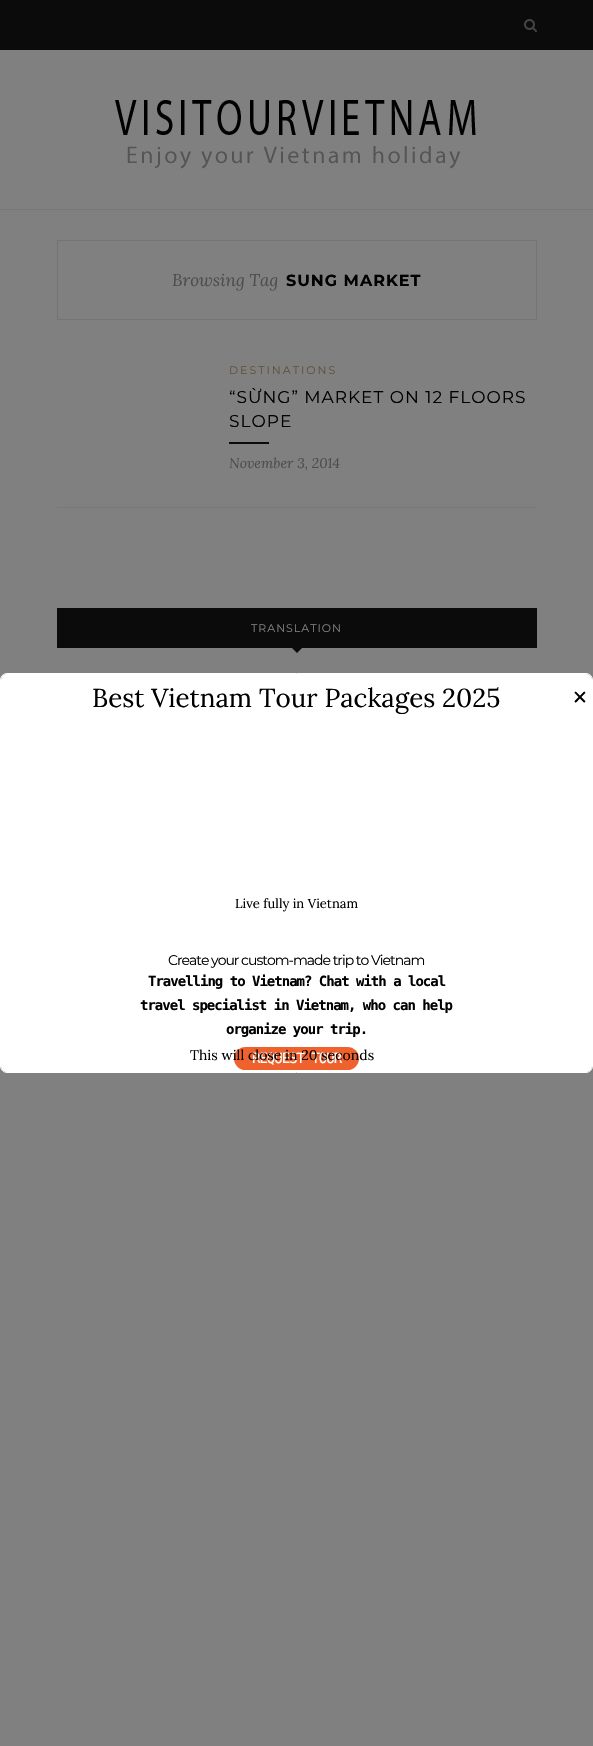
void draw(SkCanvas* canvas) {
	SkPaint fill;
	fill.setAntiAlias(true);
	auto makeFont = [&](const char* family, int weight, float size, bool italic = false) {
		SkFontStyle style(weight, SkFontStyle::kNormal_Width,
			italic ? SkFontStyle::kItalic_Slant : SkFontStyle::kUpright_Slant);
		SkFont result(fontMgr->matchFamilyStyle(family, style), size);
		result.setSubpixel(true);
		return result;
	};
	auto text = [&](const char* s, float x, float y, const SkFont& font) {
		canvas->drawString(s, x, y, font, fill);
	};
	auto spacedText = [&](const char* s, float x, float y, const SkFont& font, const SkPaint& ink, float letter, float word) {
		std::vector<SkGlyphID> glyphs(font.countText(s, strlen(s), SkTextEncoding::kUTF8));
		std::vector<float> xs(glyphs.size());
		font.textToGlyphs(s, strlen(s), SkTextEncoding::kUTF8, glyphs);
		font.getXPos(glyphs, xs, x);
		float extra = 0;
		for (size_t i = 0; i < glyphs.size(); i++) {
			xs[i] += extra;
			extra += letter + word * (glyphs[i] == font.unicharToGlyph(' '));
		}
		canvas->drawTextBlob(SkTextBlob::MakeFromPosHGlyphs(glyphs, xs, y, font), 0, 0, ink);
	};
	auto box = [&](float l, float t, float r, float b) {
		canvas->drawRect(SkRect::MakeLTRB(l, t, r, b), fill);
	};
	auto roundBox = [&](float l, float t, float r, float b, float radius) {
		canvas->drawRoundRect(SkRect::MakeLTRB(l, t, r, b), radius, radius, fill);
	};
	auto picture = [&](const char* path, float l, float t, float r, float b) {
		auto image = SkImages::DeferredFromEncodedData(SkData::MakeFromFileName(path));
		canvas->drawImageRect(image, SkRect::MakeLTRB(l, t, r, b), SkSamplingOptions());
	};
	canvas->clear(0xFF808080);
	fill.setColor(0xFF0B0B0B);
	box(0, 0, 593, 50);
	picture("image0.png", 524, 19, 537, 32);
	fill.setColor(0xFF777777);
	box(0, 209, 593, 210);
	picture("image1.png", 115, 100, 476, 169);
	fill.setStyle(SkPaint::kStroke_Style);
	fill.setStrokeWidth(1);
	fill.setColor(0xFF747474);
	canvas->drawRect(SkRect::MakeLTRB(57.5f, 240.5f, 536.5f, 319.5f), fill);
	fill.setStyle(SkPaint::kFill_Style);
	fill.setColor(0xFF777777);
	box(57, 507, 537, 508);
	fill.setColor(0xFF0B0B0B);
	box(229, 442, 269, 444);
	box(57, 608, 537, 648);
	canvas->drawPath(SkPathBuilder().moveTo(292, 648).lineTo(302, 648).lineTo(297, 653).close().detach(), fill);
	fill.setStyle(SkPaint::kStroke_Style);
	fill.setColor(0xFFFFFFFF);
	canvas->drawRoundRect(SkRect::MakeLTRB(0.5f, 673.5f, 592.5f, 1072.5f), 6.5f, 6.5f, fill);
	fill.setStyle(SkPaint::kFill_Style);
	canvas->drawPath(SkPathBuilder().moveTo(7, 674).lineTo(586, 674).cubicTo(589.5f, 674, 592, 676.5f, 592, 680).lineTo(592, 722).lineTo(1, 722).lineTo(1, 680).cubicTo(1, 676.5f, 3.5f, 674, 7, 674).close().detach(), fill);
	canvas->drawPath(SkPathBuilder().moveTo(1, 722).lineTo(592, 722).lineTo(592, 1066).cubicTo(592, 1069.5f, 589.5f, 1072, 586, 1072).lineTo(7, 1072).cubicTo(3.5f, 1072, 1, 1069.5f, 1, 1066).close().detach(), fill);
	fill.setColor(0xFFEF612D);
	roundBox(234, 1047, 359, 1070, 11.5f);
	auto font1 = makeFont("Lora", 400, 17, true);
	fill.setColor(0xFF4D4D4D);
	text("Browsing Tag", 172, 286, font1);
	auto font2 = makeFont("Montserrat", 700, 16);
	fill.setColor(0xFF000000);
	spacedText("SUNG MARKET", 286, 286, font2, fill, 1, 0);
	auto font3 = makeFont("Montserrat", 400, 11);
	fill.setColor(0xFF62503B);
	spacedText("DESTINATIONS", 229, 374, font3, fill, 2, 0);
	auto font4 = makeFont("Montserrat", 400, 17);
	fill.setColor(0xFF000000);
	spacedText("“SỪNG” MARKET ON 12 FLOORS", 229, 403, font4, fill, 1, 0);
	spacedText("SLOPE", 229, 427, font4, fill, 1, 0);
	auto font5 = makeFont("Lora", 400, 14, true);
	fill.setColor(0xFF4D4D4D);
	text("November 3, 2014", 229, 468, font5);
	fill.setColor(0xFF808080);
	spacedText("TRANSLATION", 251, 632, font3, fill, 1, 0);
	auto font6 = makeFont("Lora", 400, 26);
	fill.setColor(0xFF000000);
	text("Best Vietnam Tour Packages 2025", 92, 707, font6);
	auto font7 = makeFont("DejaVu Sans", 400, 19);
	text("✕", 572, 704, font7);
	auto font8 = makeFont("Lora", 400, 13);
	text("Live fully in Vietnam", 235, 908, font8);
	auto font9 = makeFont("Montserrat", 400, 14);
	spacedText("Create your custom-made trip to Vietnam", 168, 965, font9, fill, -1, 0);
	auto font10 = makeFont("DejaVu Sans Mono", 700, 14);
	spacedText("Travelling to Vietnam? Chat with a local", 148, 986, font10, fill, -1, 0);
	spacedText("travel specialist in Vietnam, who can help", 140, 1010, font10, fill, -1, 0);
	spacedText("organize your trip.", 226, 1034, font10, fill, -1, 0);
	auto font11 = makeFont("DejaVu Sans Mono", 400, 14);
	fill.setColor(0xFFFFFFFF);
	spacedText("REQUEST TOUR", 252, 1063, font11, fill, -1, 0);
	auto font12 = makeFont("Lora", 400, 14);
	fill.setColor(0xFF000000);
	text("This will close in 20 seconds", 190, 1060, font12);
}
